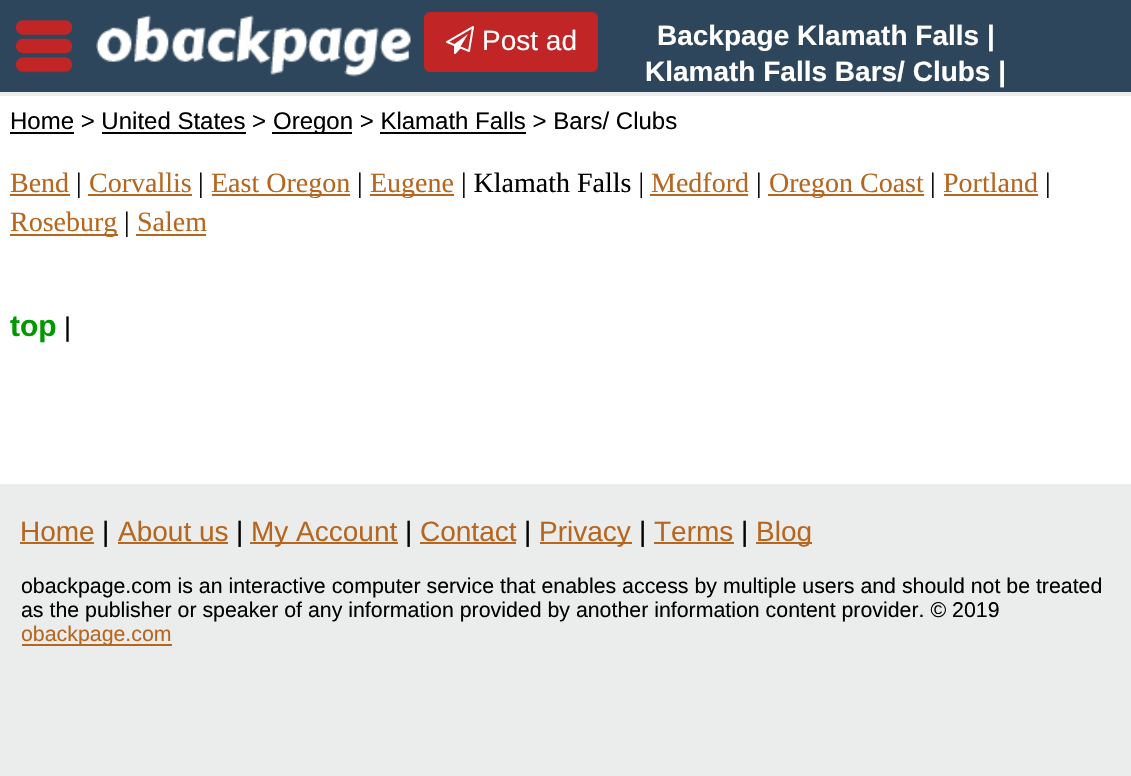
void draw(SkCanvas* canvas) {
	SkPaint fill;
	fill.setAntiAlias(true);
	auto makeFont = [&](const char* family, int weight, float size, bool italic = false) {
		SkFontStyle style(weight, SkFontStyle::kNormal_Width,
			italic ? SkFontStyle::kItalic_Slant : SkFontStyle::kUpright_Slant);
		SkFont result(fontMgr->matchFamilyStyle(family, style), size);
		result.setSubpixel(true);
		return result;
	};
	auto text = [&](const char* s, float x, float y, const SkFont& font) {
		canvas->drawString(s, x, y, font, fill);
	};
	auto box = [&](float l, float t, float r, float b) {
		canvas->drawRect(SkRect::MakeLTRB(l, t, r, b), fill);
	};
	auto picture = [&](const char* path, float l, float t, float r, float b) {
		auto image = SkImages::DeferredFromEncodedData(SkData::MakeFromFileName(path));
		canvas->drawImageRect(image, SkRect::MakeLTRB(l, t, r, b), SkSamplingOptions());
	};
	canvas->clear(0xFFEBECEC);
	fill.setColor(0xFF2D465B);
	box(0, 0, 1131, 92);
	picture("image0.png", 16, 19, 72, 73);
	picture("image1.png", 96, 15, 411, 77);
	fill.setColor(0xFFC12525);
	canvas->drawRoundRect(SkRect::MakeLTRB(425, 13, 597, 71), 5, 5, fill);
	fill.setStyle(SkPaint::kStroke_Style);
	fill.setStrokeWidth(2);
	canvas->drawRoundRect(SkRect::MakeLTRB(425, 13, 597, 71), 5, 5, fill);
	picture("image2.png", 446, 26, 474, 54);
	fill.setStyle(SkPaint::kFill_Style);
	fill.setColor(0xFFFFFFFF);
	box(0, 96, 1131, 484);
	fill.setColor(0xFF000000);
	box(10, 132, 74, 134);
	box(102, 132, 246, 134);
	box(272, 132, 352, 134);
	box(380, 132, 526, 134);
	fill.setColor(0xFFB7661F);
	box(10, 194, 70, 196);
	box(88, 194, 192, 196);
	box(212, 194, 350, 196);
	box(370, 194, 454, 196);
	box(650, 194, 748, 196);
	box(768, 194, 924, 196);
	box(944, 194, 1038, 196);
	box(10, 234, 118, 236);
	box(136, 234, 206, 236);
	box(20, 542, 94, 544);
	box(118, 542, 228, 544);
	box(250, 542, 398, 544);
	box(420, 542, 516, 544);
	box(540, 542, 632, 544);
	box(654, 542, 734, 544);
	box(756, 542, 812, 544);
	box(22, 644, 172, 646);
	auto font1 = makeFont("Liberation Sans", 400, 28);
	fill.setColor(0xFFFFFFFF);
	text("Post ad", 482, 50, font1);
	auto font2 = makeFont("Liberation Sans", 700, 28);
	text("Backpage Klamath Falls |", 657, 45, font2);
	text("Klamath Falls Bars/ Clubs |", 645, 81, font2);
	auto font3 = makeFont("Liberation Sans", 400, 24);
	fill.setColor(0xFF000000);
	text("Home > United States >", 10, 129, font3);
	text("Oregon > Klamath Falls > Bars/ Clubs", 273, 129, font3);
	auto font4 = makeFont("Liberation Serif", 400, 28);
	fill.setColor(0xFFB7661F);
	text("Bend", 10, 192, font4);
	fill.setColor(0xFF000000);
	text("|", 76, 192, font4);
	fill.setColor(0xFFB7661F);
	text("Corvallis", 89, 192, font4);
	fill.setColor(0xFF000000);
	text("|", 198, 192, font4);
	fill.setColor(0xFFB7661F);
	text("East Oregon", 211, 192, font4);
	fill.setColor(0xFF000000);
	text("|", 357, 192, font4);
	fill.setColor(0xFFB7661F);
	text("Eugene", 370, 192, font4);
	fill.setColor(0xFF000000);
	text("| Klamath Falls |", 461, 192, font4);
	fill.setColor(0xFFB7661F);
	text("Medford", 651, 192, font4);
	fill.setColor(0xFF000000);
	text("|", 756, 192, font4);
	fill.setColor(0xFFB7661F);
	text("Oregon Coast", 769, 192, font4);
	fill.setColor(0xFF000000);
	text("|", 930, 192, font4);
	fill.setColor(0xFFB7661F);
	text("Portland", 943, 192, font4);
	fill.setColor(0xFF000000);
	text("|", 1045, 192, font4);
	fill.setColor(0xFFB7661F);
	text("Roseburg", 10, 231, font4);
	fill.setColor(0xFF000000);
	text("|", 124, 231, font4);
	fill.setColor(0xFFB7661F);
	text("Salem", 137, 231, font4);
	auto font5 = makeFont("Liberation Sans", 700, 30);
	fill.setColor(0xFF009900);
	text("top", 10, 336, font5);
	auto font6 = makeFont("Liberation Sans", 400, 27);
	fill.setColor(0xFF000000);
	text("|", 64, 336, font6);
	fill.setColor(0xFFB7661F);
	text("Home", 20, 541, font1);
	fill.setColor(0xFF000000);
	text("|", 102, 541, font1);
	fill.setColor(0xFFB7661F);
	text("About us", 118, 541, font1);
	fill.setColor(0xFF000000);
	text("|", 236, 541, font1);
	fill.setColor(0xFFB7661F);
	text("My Account", 251, 541, font1);
	fill.setColor(0xFF000000);
	text("|", 405, 541, font1);
	fill.setColor(0xFFB7661F);
	text("Contact", 420, 541, font1);
	fill.setColor(0xFF000000);
	text("|", 524, 541, font1);
	fill.setColor(0xFFB7661F);
	text("Privacy", 539, 541, font1);
	fill.setColor(0xFF000000);
	text("|", 639, 541, font1);
	fill.setColor(0xFFB7661F);
	text("Terms", 654, 541, font1);
	fill.setColor(0xFF000000);
	text("|", 741, 541, font1);
	fill.setColor(0xFFB7661F);
	text("Blog", 756, 541, font1);
	auto font7 = makeFont("Liberation Sans", 400, 21.33f);
	fill.setColor(0xFF000000);
	text("obackpage.com is an interactive computer service that enables access by multiple users and should not be treated", 21, 593, font7);
	text("as the publisher or speaker of any information provided by another information content provider. © 2019", 21, 617, font7);
	fill.setColor(0xFFB7661F);
	text("obackpage.com", 21, 641, font7);
}
